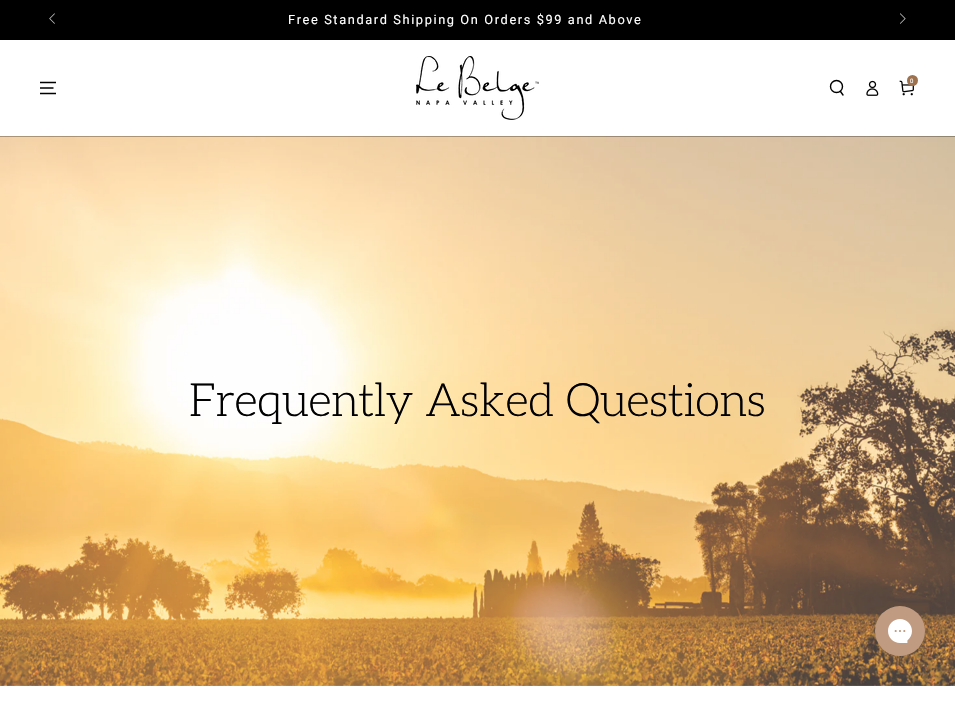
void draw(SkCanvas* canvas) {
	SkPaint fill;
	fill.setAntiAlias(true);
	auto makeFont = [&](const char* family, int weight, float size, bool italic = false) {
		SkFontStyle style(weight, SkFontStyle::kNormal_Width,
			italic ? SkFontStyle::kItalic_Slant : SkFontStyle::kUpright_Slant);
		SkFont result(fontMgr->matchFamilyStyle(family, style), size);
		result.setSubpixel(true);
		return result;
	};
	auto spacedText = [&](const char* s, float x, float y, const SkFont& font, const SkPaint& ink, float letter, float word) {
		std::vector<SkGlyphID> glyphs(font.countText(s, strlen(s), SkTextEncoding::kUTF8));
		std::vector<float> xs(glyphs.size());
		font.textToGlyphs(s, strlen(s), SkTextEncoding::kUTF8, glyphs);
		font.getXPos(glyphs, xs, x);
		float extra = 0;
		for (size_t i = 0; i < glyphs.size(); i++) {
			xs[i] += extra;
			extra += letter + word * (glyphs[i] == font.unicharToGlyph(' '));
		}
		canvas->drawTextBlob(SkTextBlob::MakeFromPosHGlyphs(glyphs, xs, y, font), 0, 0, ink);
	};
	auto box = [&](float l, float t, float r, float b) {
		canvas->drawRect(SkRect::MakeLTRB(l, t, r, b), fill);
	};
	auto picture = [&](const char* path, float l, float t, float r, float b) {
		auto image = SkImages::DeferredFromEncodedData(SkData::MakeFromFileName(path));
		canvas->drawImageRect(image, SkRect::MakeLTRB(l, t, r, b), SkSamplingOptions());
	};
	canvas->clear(0xFFFFFFFF);
	fill.setColor(0xFF000000);
	box(0, 0, 955, 40);
	picture("image0.png", 49, 13, 55, 24);
	picture("image1.png", 900, 13, 906, 24);
	picture("image5.png", 0, 136, 955, 686);
	fill.setColor(0x4D000000);
	box(0, 136, 955, 137);
	fill.setStyle(SkPaint::kStroke_Style);
	fill.setStrokeWidth(1.4f);
	fill.setColor(0xFF000000);
	canvas->drawPath(SkPathBuilder().moveTo(40, 93.5f).lineTo(56, 93.5f).moveTo(40, 88).lineTo(53.5f, 88).moveTo(40, 82.5f).lineTo(56, 82.5f).detach(), fill);
	picture("image2.png", 416, 56, 539, 120);
	canvas->drawCircle(836.5f, 86.5f, 6, fill);
	fill.setStrokeCap(SkPaint::kRound_Cap);
	canvas->drawPath(SkPathBuilder().moveTo(840.5f, 91.5f).lineTo(843, 95).detach(), fill);
	picture("image3.png", 866, 80, 879, 96);
	picture("image4.png", 899, 80, 914, 96);
	fill.setStyle(SkPaint::kFill_Style);
	fill.setColor(0xFF9E724F);
	canvas->drawCircle(912.5f, 80.5f, 5.5f, fill);
	picture("image6.png", 873, 606, 927, 660);
	auto font1 = makeFont("Roboto", 400, 12.8f);
	fill.setColor(0xFFFFFFFF);
	spacedText("Free Standard Shipping On Orders $99 and Above", 288, 24, font1, fill, 1.6f, 0);
	auto font2 = makeFont("Roboto", 400, 6);
	spacedText("0", 910, 83, font2, fill, 1, 0);
	auto font3 = makeFont("Aleo", 300, 46);
	fill.setColor(0xFF000000);
	spacedText("Frequently Asked Questions", 189, 416, font3, fill, -0.1f, 0);
}
